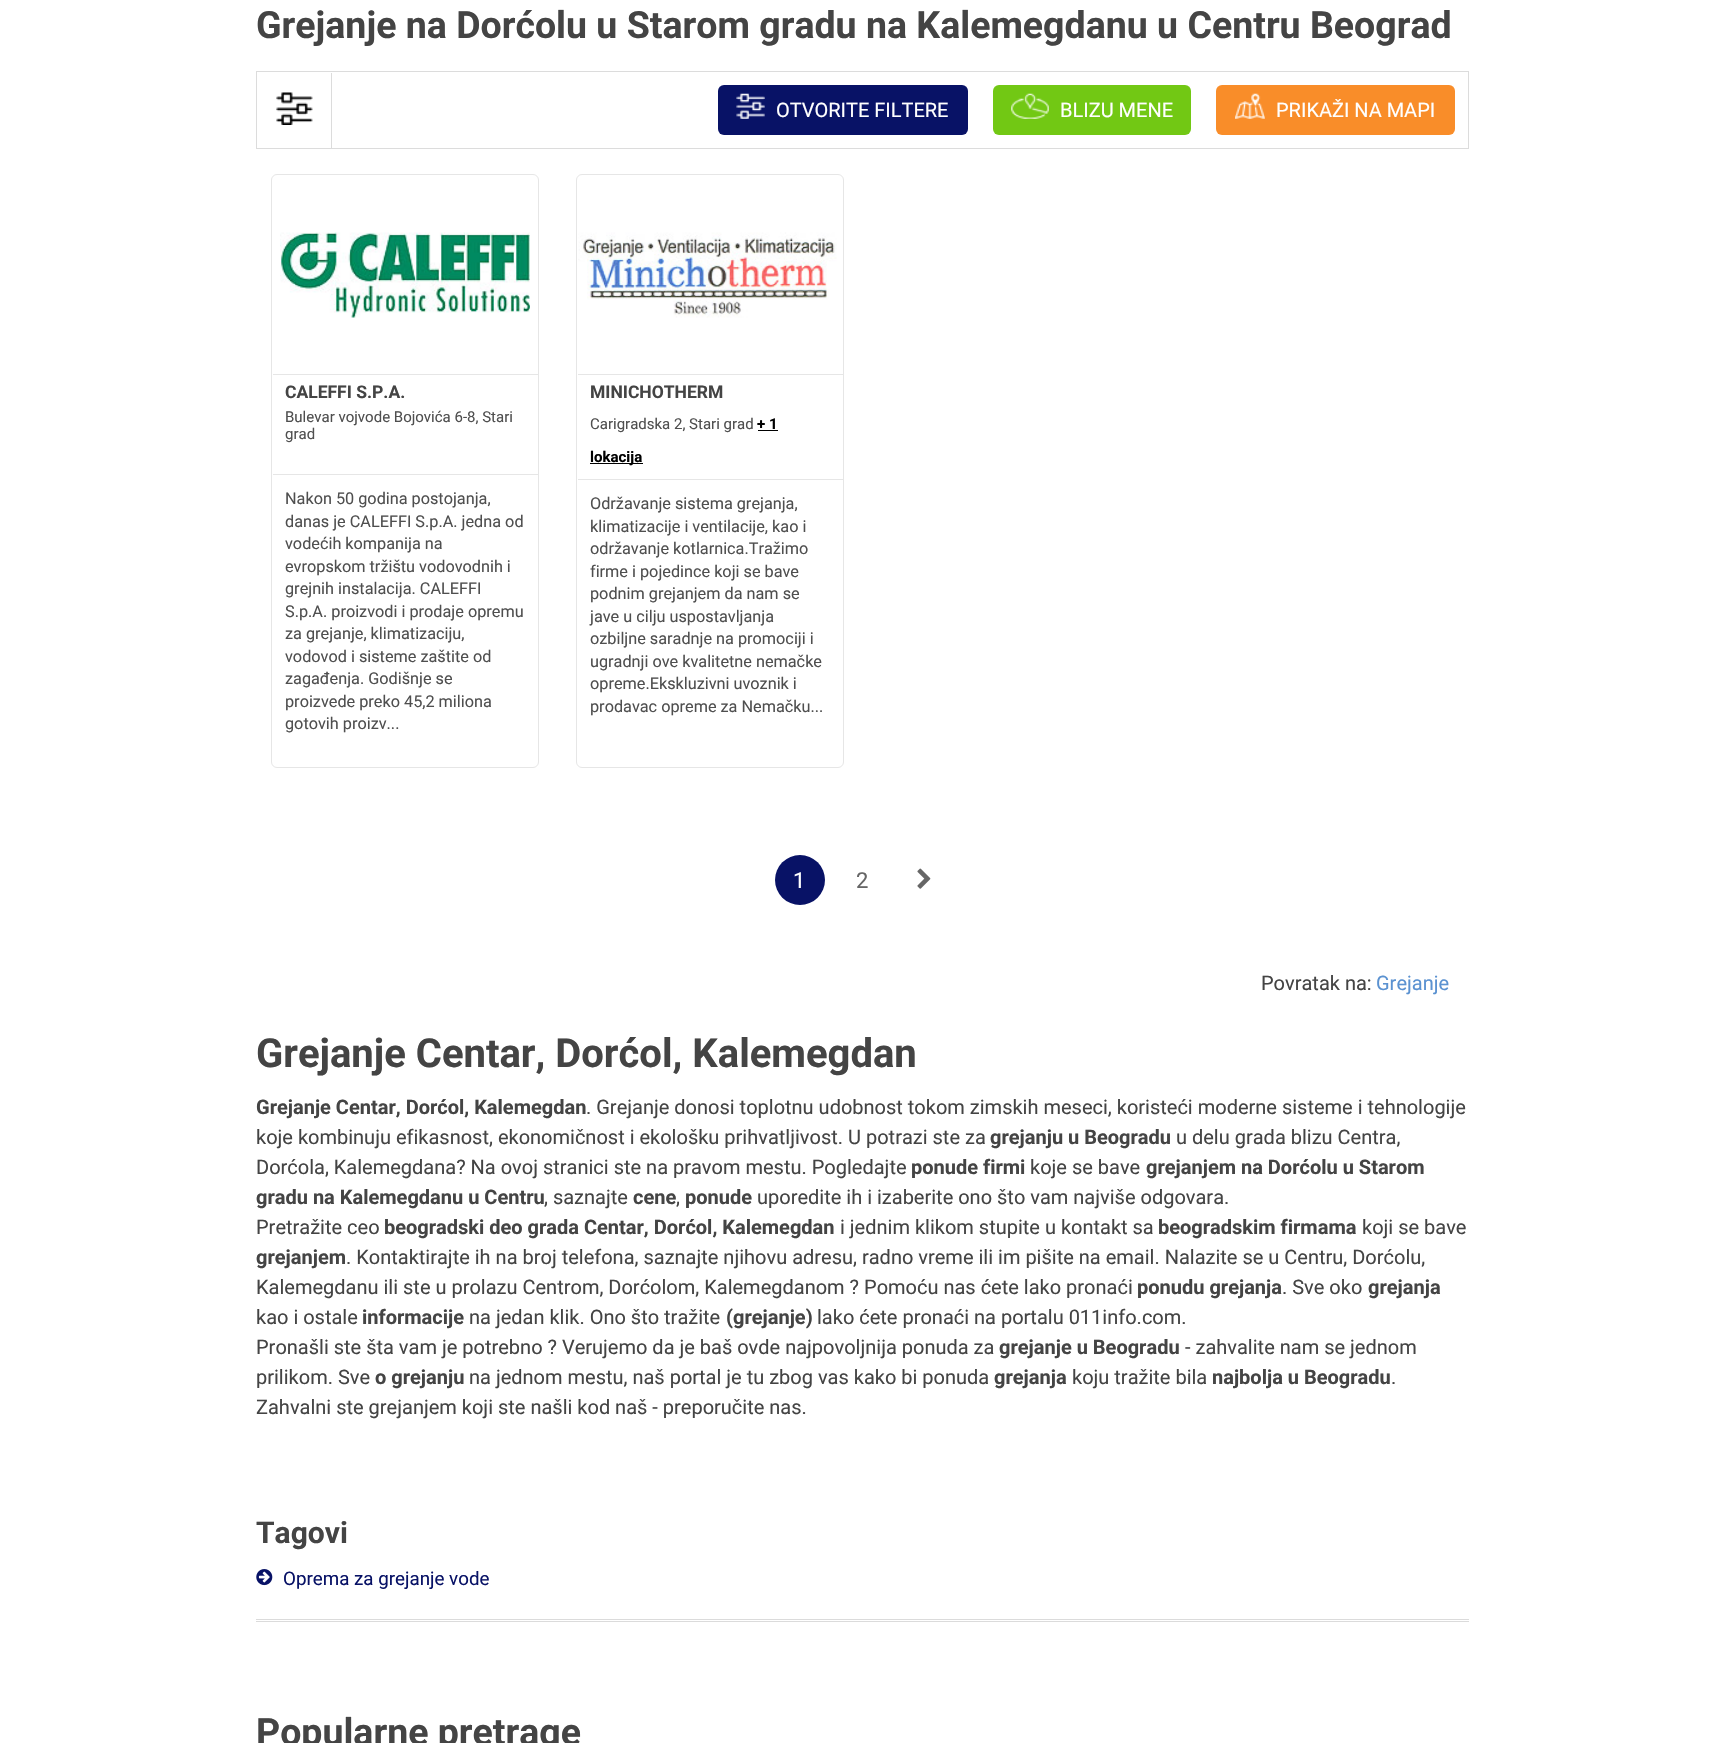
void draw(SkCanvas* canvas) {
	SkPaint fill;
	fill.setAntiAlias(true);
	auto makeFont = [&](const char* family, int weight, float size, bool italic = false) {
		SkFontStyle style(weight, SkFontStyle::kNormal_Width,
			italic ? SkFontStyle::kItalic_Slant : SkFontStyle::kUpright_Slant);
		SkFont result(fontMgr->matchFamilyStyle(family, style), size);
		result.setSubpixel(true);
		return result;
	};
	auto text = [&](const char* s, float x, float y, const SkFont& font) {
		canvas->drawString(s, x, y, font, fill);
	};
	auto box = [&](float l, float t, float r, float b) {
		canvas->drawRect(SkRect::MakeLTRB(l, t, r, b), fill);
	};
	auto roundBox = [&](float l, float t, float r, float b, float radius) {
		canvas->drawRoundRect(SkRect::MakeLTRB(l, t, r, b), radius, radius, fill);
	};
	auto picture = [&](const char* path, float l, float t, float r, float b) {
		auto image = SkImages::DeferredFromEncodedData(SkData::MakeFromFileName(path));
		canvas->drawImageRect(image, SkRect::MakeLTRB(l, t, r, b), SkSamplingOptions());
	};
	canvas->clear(0xFFFFFFFF);
	fill.setStyle(SkPaint::kStroke_Style);
	fill.setStrokeWidth(1);
	fill.setColor(0xFFDCDCDC);
	canvas->drawRect(SkRect::MakeLTRB(256.5f, 71.5f, 1468.5f, 148.5f), fill);
	fill.setStyle(SkPaint::kFill_Style);
	box(331, 73, 332, 148);
	picture("image0.png", 276, 92, 313, 125);
	fill.setColor(0xFF081266);
	roundBox(718, 85, 968, 135, 6);
	picture("image1.png", 736, 93, 765, 119);
	fill.setColor(0xFF72C814);
	roundBox(993, 85, 1191, 135, 6);
	picture("image2.png", 1011, 93, 1049, 119);
	fill.setColor(0xFFF98D29);
	roundBox(1216, 85, 1455, 135, 6);
	picture("image3.png", 1235, 93, 1265, 119);
	fill.setStyle(SkPaint::kStroke_Style);
	fill.setColor(0xFFE6E6E6);
	canvas->drawRoundRect(SkRect::MakeLTRB(271.5f, 174.5f, 538.5f, 767.5f), 5.5f, 5.5f, fill);
	fill.setStyle(SkPaint::kFill_Style);
	box(273, 374, 538, 375);
	picture("image4.png", 280, 232, 530, 318);
	box(273, 474, 538, 475);
	fill.setStyle(SkPaint::kStroke_Style);
	canvas->drawRoundRect(SkRect::MakeLTRB(576.5f, 174.5f, 843.5f, 767.5f), 5.5f, 5.5f, fill);
	fill.setStyle(SkPaint::kFill_Style);
	box(578, 374, 843, 375);
	picture("image5.png", 578, 232, 837, 318);
	box(578, 479, 843, 480);
	fill.setColor(0xFF000000);
	box(758, 430, 778, 431);
	box(590, 463, 643, 464);
	fill.setColor(0xFF081266);
	canvas->drawCircle(800, 880, 25, fill);
	picture("image6.png", 917, 868, 931, 889);
	picture("image7.png", 256, 1569, 273, 1586);
	fill.setColor(0xFFDBDBDB);
	box(256, 1619, 1469, 1620);
	box(256, 1621, 1469, 1622);
	auto font1 = makeFont("Roboto", 700, 37.5f);
	fill.setColor(0xFF444444);
	text("Grejanje na Dorćolu u Starom gradu na Kalemegdanu u Centru Beograd", 256, 38, font1);
	auto font2 = makeFont("Roboto", 400, 20);
	fill.setColor(0xFFFFFFFF);
	text("OTVORITE FILTERE", 776, 117, font2);
	text("BLIZU MENE", 1060, 117, font2);
	text("PRIKAŽI NA MAPI", 1276, 117, font2);
	auto font3 = makeFont("Roboto", 700, 17.5f);
	fill.setColor(0xFF444444);
	text("CALEFFI S.P.A.", 285, 398, font3);
	auto font4 = makeFont("Roboto", 400, 15);
	fill.setColor(0xFF4F4F4F);
	text("Bulevar vojvode Bojovića 6-8, Stari", 285, 422, font4);
	text("grad", 285, 439, font4);
	auto font5 = makeFont("Roboto", 400, 16.25f);
	text("Nakon 50 godina postojanja,", 285, 504, font5);
	text("danas je CALEFFI S.p.A. jedna od", 285, 527, font5);
	text("vodećih kompanija na", 285, 549, font5);
	text("evropskom tržištu vodovodnih i", 285, 572, font5);
	text("grejnih instalacija. CALEFFI", 285, 594, font5);
	text("S.p.A. proizvodi i prodaje opremu", 285, 617, font5);
	text("za grejanje, klimatizaciju,", 285, 639, font5);
	text("vodovod i sisteme zaštite od", 285, 662, font5);
	text("zagađenja. Godišnje se", 285, 684, font5);
	text("proizvede preko 45,2 miliona", 285, 707, font5);
	text("gotovih proizv...", 285, 729, font5);
	fill.setColor(0xFF444444);
	text("MINICHOTHERM", 590, 398, font3);
	fill.setColor(0xFF4F4F4F);
	text("Carigradska 2, Stari grad", 590, 429, font4);
	auto font6 = makeFont("Roboto", 700, 15);
	fill.setColor(0xFF000000);
	text("+ 1", 757, 429, font6);
	text("lokacija", 590, 462, font6);
	fill.setColor(0xFF4F4F4F);
	text("Održavanje sistema grejanja,", 590, 509, font5);
	text("klimatizacije i ventilacije, kao i", 590, 532, font5);
	text("održavanje kotlarnica.Tražimo", 590, 554, font5);
	text("firme i pojedince koji se bave", 590, 577, font5);
	text("podnim grejanjem da nam se", 590, 599, font5);
	text("jave u cilju uspostavljanja", 590, 622, font5);
	text("ozbiljne saradnje na promociji i", 590, 644, font5);
	text("ugradnji ove kvalitetne nemačke", 590, 667, font5);
	text("opreme.Ekskluzivni uvoznik i", 590, 689, font5);
	text("prodavac opreme za Nemačku...", 590, 712, font5);
	auto font7 = makeFont("Roboto", 400, 22);
	fill.setColor(0xFFFFFFFF);
	text("1", 793, 888, font7);
	fill.setColor(0xFF666666);
	text("2", 856, 888, font7);
	fill.setColor(0xFF444444);
	text("Povratak na:", 1261, 990, font2);
	fill.setColor(0xFF5B92D1);
	text("Grejanje", 1376, 990, font2);
	auto font8 = makeFont("Roboto", 700, 40);
	fill.setColor(0xFF444444);
	text("Grejanje Centar, Dorćol, Kalemegdan", 256, 1067, font8);
	auto font9 = makeFont("Roboto", 700, 20);
	text("Grejanje Centar, Dorćol, Kalemegdan", 256, 1114, font9);
	text(". Grejanje donosi toplotnu udobnost tokom zimskih meseci, koristeći moderne sisteme i tehnologije", 586, 1114, font2);
	text("koje kombinuju efikasnost, ekonomičnost i ekološku prihvatljivost. U potrazi ste za", 256, 1144, font2);
	text("grejanju u Beogradu", 990, 1144, font9);
	text("u delu grada blizu Centra,", 1176, 1144, font2);
	text("Dorćola, Kalemegdana? Na ovoj stranici ste na pravom mestu. Pogledajte", 256, 1174, font2);
	text("ponude firmi", 911, 1174, font9);
	text("koje se bave", 1030, 1174, font2);
	text("grejanjem na Dorćolu u Starom", 1146, 1174, font9);
	text("gradu na Kalemegdanu u Centru", 256, 1204, font9);
	text(", saznajte", 544, 1204, font2);
	text("cene", 633, 1204, font9);
	text(",", 676, 1204, font2);
	text("ponude", 685, 1204, font9);
	text("uporedite ih i izaberite ono što vam najviše odgovara.", 757, 1204, font2);
	text("Pretražite ceo", 256, 1234, font2);
	text("beogradski deo grada Centar, Dorćol, Kalemegdan", 384, 1234, font9);
	text("i jednim klikom stupite u kontakt sa", 840, 1234, font2);
	text("beogradskim firmama", 1158, 1234, font9);
	text("koji se bave", 1362, 1234, font2);
	text("grejanjem", 256, 1264, font9);
	text(". Kontaktirajte ih na broj telefona, saznajte njihovu adresu, radno vreme ili im pišite na email. Nalazite se u Centru, Dorćolu,", 346, 1264, font2);
	text("Kalemegdanu ili ste u prolazu Centrom, Dorćolom, Kalemegdanom ? Pomoću nas ćete lako pronaći", 256, 1294, font2);
	text("ponudu grejanja", 1137, 1294, font9);
	text(". Sve oko", 1282, 1294, font2);
	text("grejanja", 1368, 1294, font9);
	text("kao i ostale", 256, 1324, font2);
	text("informacije", 362, 1324, font9);
	text("na jedan klik. Ono što tražite", 469, 1324, font2);
	text("(grejanje)", 726, 1324, font9);
	text("lako ćete pronaći na portalu 011info.com.", 817, 1324, font2);
	text("Pronašli ste šta vam je potrebno ? Verujemo da je baš ovde najpovoljnija ponuda za", 256, 1354, font2);
	text("grejanje u Beogradu", 999, 1354, font9);
	text("- zahvalite nam se jednom", 1185, 1354, font2);
	text("prilikom. Sve", 256, 1384, font2);
	text("o grejanju", 375, 1384, font9);
	text("na jednom mestu, naš portal je tu zbog vas kako bi ponuda", 469, 1384, font2);
	text("grejanja", 994, 1384, font9);
	text("koju tražite bila", 1072, 1384, font2);
	text("najbolja u Beogradu", 1212, 1384, font9);
	text(".", 1391, 1384, font2);
	text("Zahvalni ste grejanjem koji ste našli kod naš - preporučite nas.", 256, 1414, font2);
	auto font10 = makeFont("Roboto", 700, 30);
	text("Tagovi", 256, 1543, font10);
	auto font11 = makeFont("Roboto", 400, 18.75f);
	fill.setColor(0xFF081266);
	text("Oprema za grejanje vode", 283, 1585, font11);
	fill.setColor(0xFF444444);
	text("Popularne pretrage", 256, 1745, font1);
}
